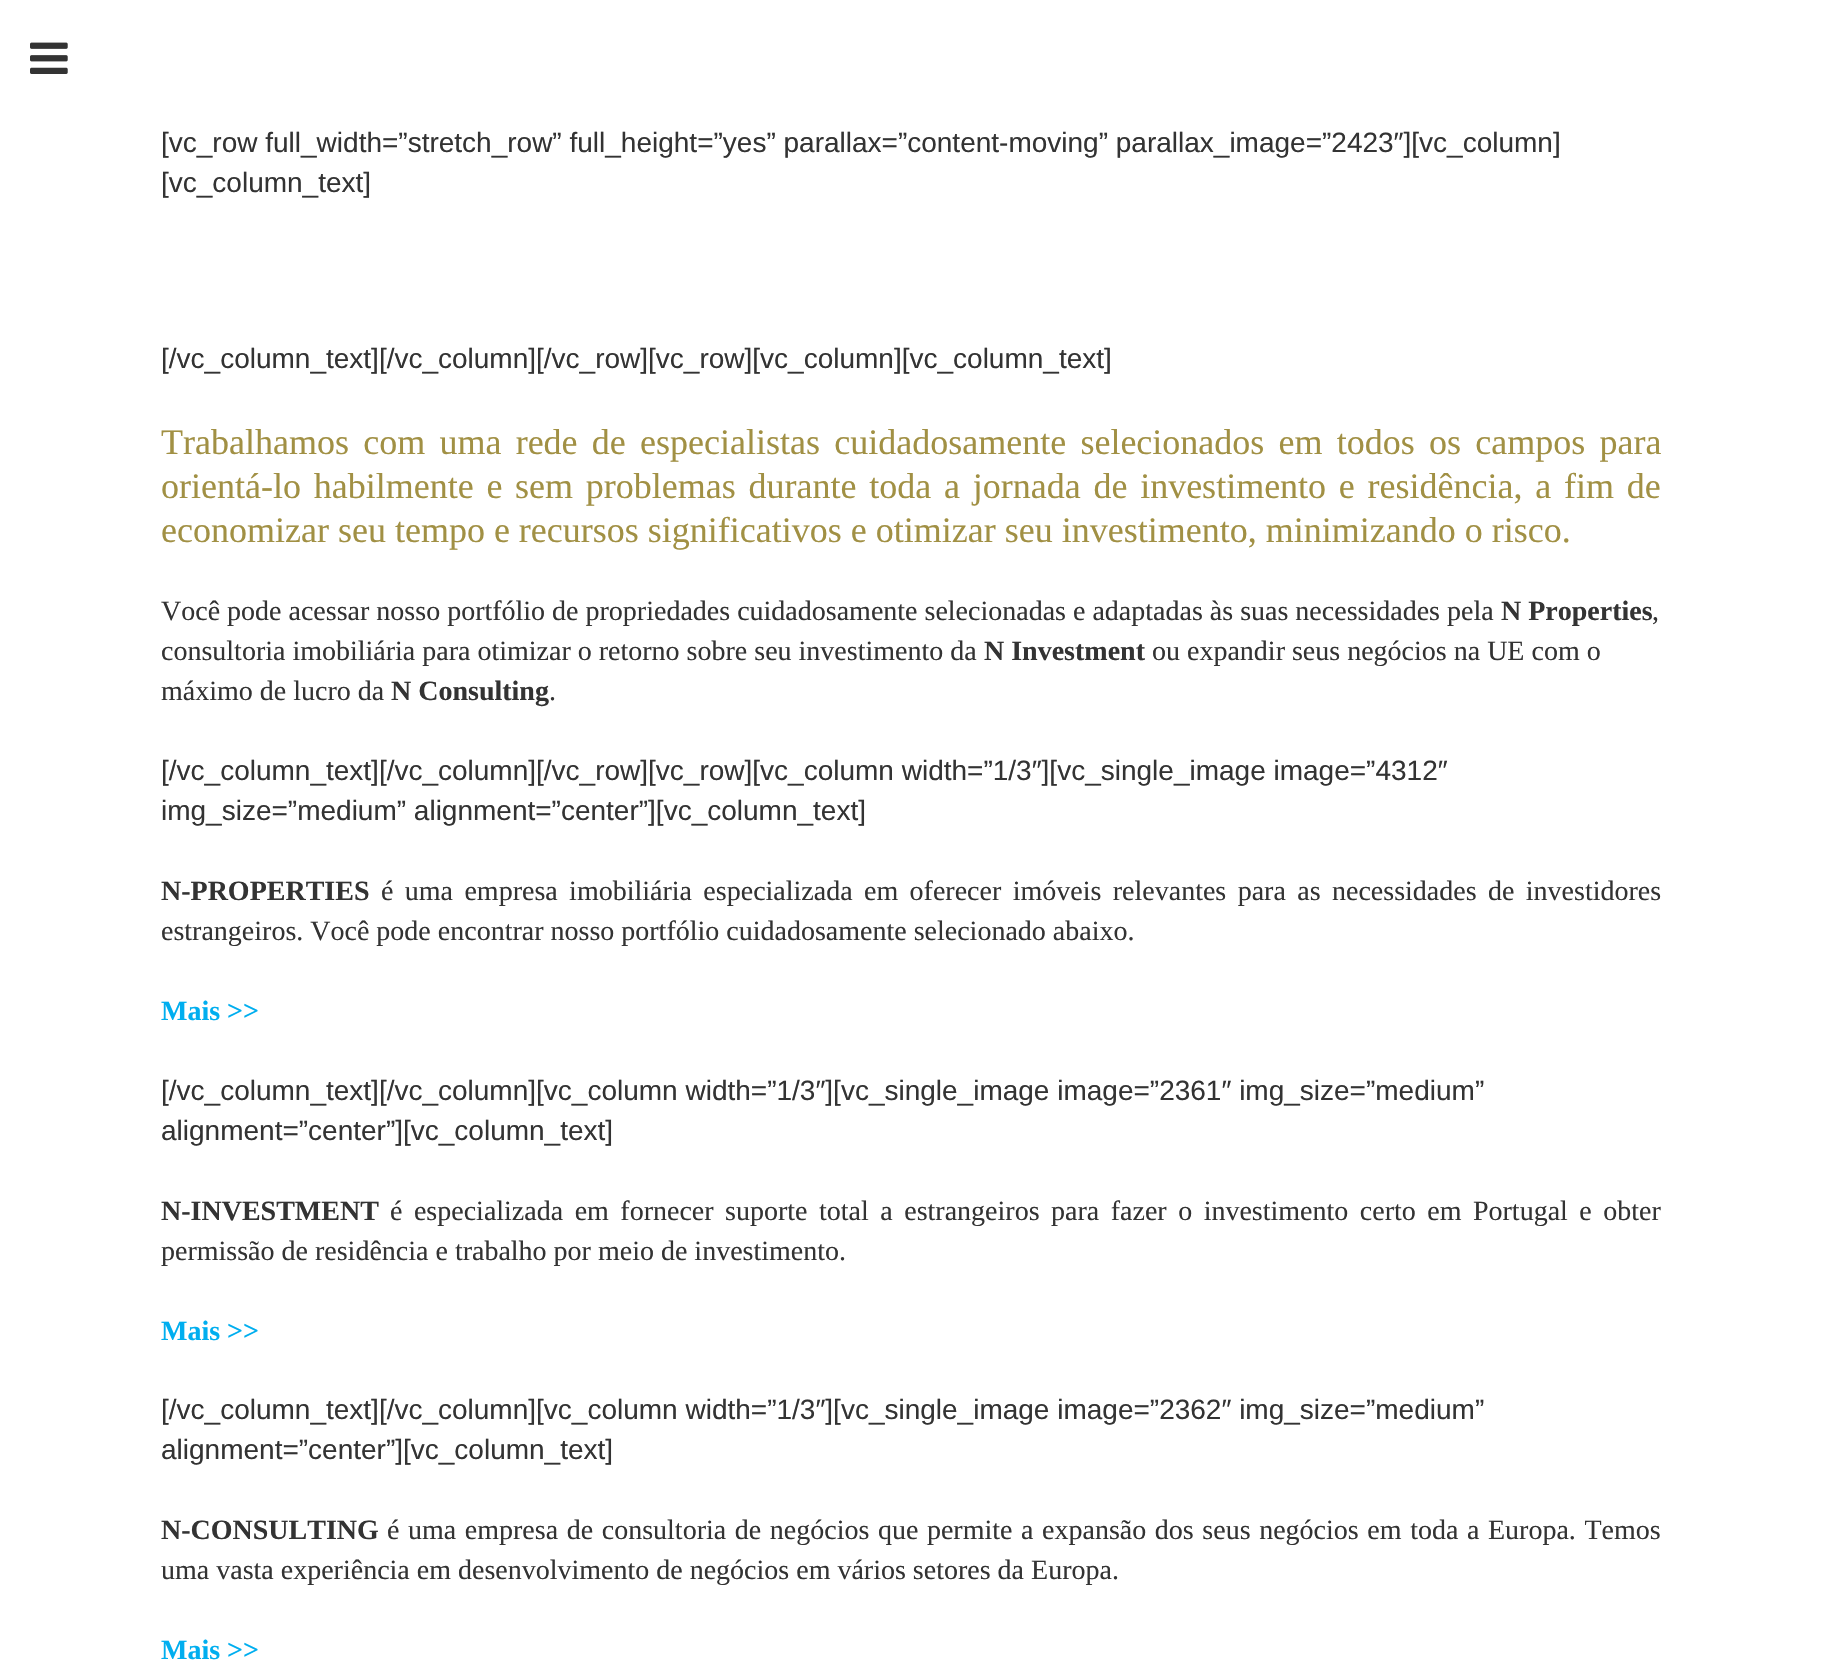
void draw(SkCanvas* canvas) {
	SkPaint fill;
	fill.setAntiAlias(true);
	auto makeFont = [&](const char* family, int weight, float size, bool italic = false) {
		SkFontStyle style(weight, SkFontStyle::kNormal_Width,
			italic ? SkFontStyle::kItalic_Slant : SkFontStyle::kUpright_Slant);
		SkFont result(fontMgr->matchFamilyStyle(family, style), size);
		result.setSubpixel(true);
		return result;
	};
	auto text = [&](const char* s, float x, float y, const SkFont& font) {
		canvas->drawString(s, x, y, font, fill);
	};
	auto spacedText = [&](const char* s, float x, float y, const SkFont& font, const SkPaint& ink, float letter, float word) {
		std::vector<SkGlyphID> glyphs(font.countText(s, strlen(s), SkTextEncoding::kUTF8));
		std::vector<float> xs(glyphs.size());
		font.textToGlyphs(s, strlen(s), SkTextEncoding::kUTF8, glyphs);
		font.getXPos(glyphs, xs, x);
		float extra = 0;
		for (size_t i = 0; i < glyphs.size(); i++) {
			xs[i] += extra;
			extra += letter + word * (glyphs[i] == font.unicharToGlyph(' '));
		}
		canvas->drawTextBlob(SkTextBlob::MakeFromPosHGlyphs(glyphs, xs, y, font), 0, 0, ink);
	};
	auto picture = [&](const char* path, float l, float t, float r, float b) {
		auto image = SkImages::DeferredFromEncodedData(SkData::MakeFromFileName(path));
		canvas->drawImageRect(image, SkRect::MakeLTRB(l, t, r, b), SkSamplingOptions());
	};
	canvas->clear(0xFFFFFFFF);
	picture("image0.png", 30, 42, 68, 74);
	auto font1 = makeFont("Liberation Sans", 400, 28);
	fill.setColor(0xFF333333);
	text("[vc_row full_width=”stretch_row” full_height=”yes” parallax=”content-moving” parallax_image=”2423″][vc_column]", 161, 152, font1);
	text("[vc_column_text]", 161, 192, font1);
	text("[/vc_column_text][/vc_column][/vc_row][vc_row][vc_column][vc_column_text]", 161, 368, font1);
	auto font2 = makeFont("Liberation Serif", 400, 36);
	fill.setColor(0xFFA19044);
	spacedText("Trabalhamos com uma rede de especialistas cuidadosamente selecionados em todos os campos para", 161, 454, font2, fill, 0, 5.25f);
	spacedText("orientá-lo habilmente e sem problemas durante toda a jornada de investimento e residência, a fim de", 161, 498, font2, fill, 0, 3.75f);
	text("economizar seu tempo e recursos significativos e otimizar seu investimento, minimizando o risco.", 161, 542, font2);
	auto font3 = makeFont("Liberation Serif", 400, 28);
	fill.setColor(0xFF333333);
	text("Você pode acessar nosso portfólio de propriedades cuidadosamente selecionadas e adaptadas às suas necessidades pela", 161, 620, font3);
	auto font4 = makeFont("Liberation Serif", 700, 28);
	text("N Properties", 1501, 620, font4);
	text(",", 1652, 620, font3);
	text("consultoria imobiliária para otimizar o retorno sobre seu investimento da", 161, 660, font3);
	text("N Investment", 984, 660, font4);
	text("ou expandir seus negócios na UE com o", 1152, 660, font3);
	text("máximo de lucro da", 161, 700, font3);
	text("N Consulting", 391, 700, font4);
	text(".", 549, 700, font3);
	text("[/vc_column_text][/vc_column][/vc_row][vc_row][vc_column width=”1/3″][vc_single_image image=”4312″", 161, 780, font1);
	text("img_size=”medium” alignment=”center”][vc_column_text]", 161, 820, font1);
	text("N-PROPERTIES", 161, 900, font4);
	spacedText("é uma empresa imobiliária especializada em oferecer imóveis relevantes para as necessidades de investidores", 381, 900, font3, fill, 0, 4.4f);
	text("estrangeiros. Você pode encontrar nosso portfólio cuidadosamente selecionado abaixo.", 161, 940, font3);
	fill.setColor(0xFF00AEEF);
	text("Mais >>", 161, 1020, font4);
	fill.setColor(0xFF333333);
	text("[/vc_column_text][/vc_column][vc_column width=”1/3″][vc_single_image image=”2361″ img_size=”medium”", 161, 1100, font1);
	text("alignment=”center”][vc_column_text]", 161, 1140, font1);
	text("N-INVESTMENT", 161, 1220, font4);
	spacedText("é especializada em fornecer suporte total a estrangeiros para fazer o investimento certo em Portugal e obter", 390, 1220, font3, fill, 0, 4.5f);
	text("permissão de residência e trabalho por meio de investimento.", 161, 1260, font3);
	fill.setColor(0xFF00AEEF);
	text("Mais >>", 161, 1340, font4);
	fill.setColor(0xFF333333);
	text("[/vc_column_text][/vc_column][vc_column width=”1/3″][vc_single_image image=”2362″ img_size=”medium”", 161, 1419, font1);
	text("alignment=”center”][vc_column_text]", 161, 1459, font1);
	text("N-CONSULTING", 161, 1539, font4);
	spacedText("é uma empresa de consultoria de negócios que permite a expansão dos seus negócios em toda a Europa. Temos", 387, 1539, font3, fill, 0, 1.6f);
	text("uma vasta experiência em desenvolvimento de negócios em vários setores da Europa.", 161, 1579, font3);
	fill.setColor(0xFF00AEEF);
	text("Mais >>", 161, 1659, font4);
}
